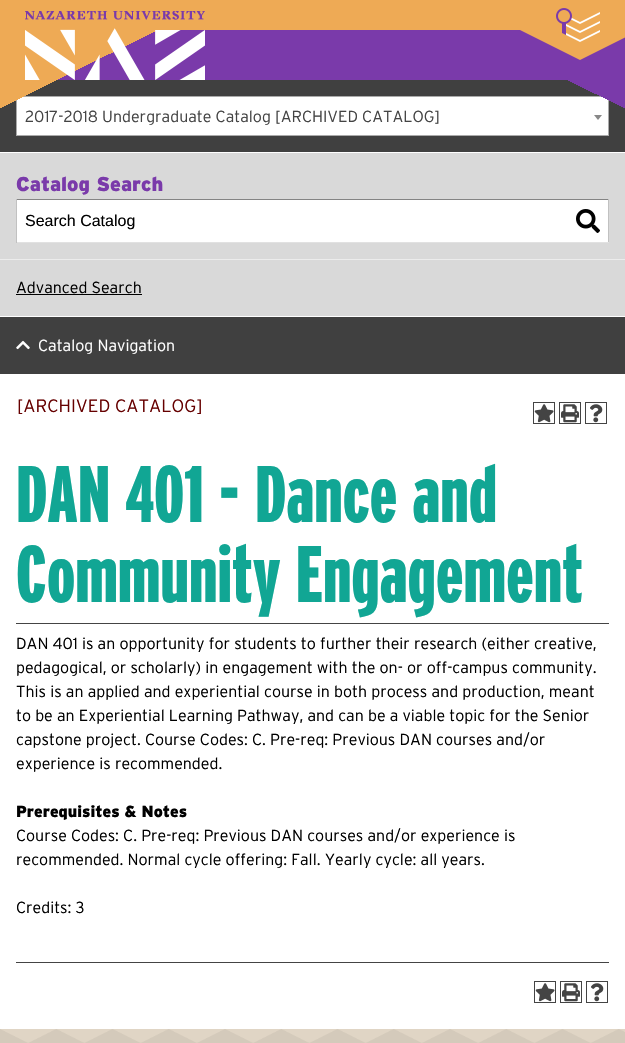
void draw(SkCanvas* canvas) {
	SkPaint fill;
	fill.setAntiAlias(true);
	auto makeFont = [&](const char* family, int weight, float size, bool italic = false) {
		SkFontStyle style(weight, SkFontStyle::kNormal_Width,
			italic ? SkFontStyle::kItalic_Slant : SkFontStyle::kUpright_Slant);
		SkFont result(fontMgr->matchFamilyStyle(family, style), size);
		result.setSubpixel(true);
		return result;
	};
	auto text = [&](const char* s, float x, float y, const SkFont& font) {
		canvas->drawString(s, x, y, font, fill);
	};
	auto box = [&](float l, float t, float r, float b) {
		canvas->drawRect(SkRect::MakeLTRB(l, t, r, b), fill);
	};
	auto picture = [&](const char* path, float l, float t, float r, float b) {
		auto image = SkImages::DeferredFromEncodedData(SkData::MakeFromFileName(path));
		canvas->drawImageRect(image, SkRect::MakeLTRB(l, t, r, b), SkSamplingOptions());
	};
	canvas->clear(0xFFFFFFFF);
	fill.setColor(0xFF7A3AAA);
	box(58, 30, 625, 80);
	fill.setColor(0xFF404040);
	box(0, 80, 625, 152);
	fill.setColor(0xFFFFFFFF);
	canvas->drawRect(SkRect::MakeLTRB(16.5f, 96.5f, 608.5f, 135.5f), fill);
	fill.setStyle(SkPaint::kStroke_Style);
	fill.setStrokeWidth(1);
	fill.setColor(0xFFAAAAAA);
	canvas->drawRect(SkRect::MakeLTRB(16.5f, 96.5f, 608.5f, 135.5f), fill);
	fill.setStyle(SkPaint::kFill_Style);
	{
		const SkColor colors[] = {0xFFEEAA55, 0xFFEEAA55, 0x00EEAA55, 0x00000000};
		const float stops[] = {0, 0.5f, 0.5f, 1};
		const SkPoint ends[] = {{65, -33}, {152, 142}};
		fill.setShader(SkGradientShader::MakeLinear(ends, colors, stops, 4, SkTileMode::kClamp));
		fill.setAlpha(255);
	}
	box(0, 0, 156, 108);
	fill.setShader(nullptr);
	fill.setColor(0xFFEEAA55);
	canvas->drawPath(SkPathBuilder().moveTo(460, 0).lineTo(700, 0).lineTo(580, 60).close().detach(), fill);
	box(156, 0, 520, 30);
	picture("image0.png", 25, 11, 205, 80);
	picture("image1.png", 556, 8, 600, 42);
	{
		const SkColor colors[] = {0xFF7A3AAA, 0xFF7A3AAA, 0x007A3AAA, 0x00000000};
		const float stops[] = {0, 0.5f, 0.5f, 1};
		const SkPoint ends[] = {{608, 71}, {585, 118}};
		fill.setShader(SkGradientShader::MakeLinear(ends, colors, stops, 4, SkTileMode::kClamp));
		fill.setAlpha(255);
	}
	box(568, 80, 625, 108);
	fill.setShader(nullptr);
	fill.setColor(0xFF888888);
	canvas->drawPath(SkPathBuilder().moveTo(594, 115).lineTo(602, 115).lineTo(598, 120).close().detach(), fill);
	fill.setColor(0xFFD9D9D9);
	box(0, 153, 625, 316);
	fill.setColor(0xFFFFFFFF);
	box(17, 200, 608, 242);
	fill.setColor(0xFF848484);
	box(16, 199, 609, 200);
	fill.setColor(0xFFC1C1C1);
	box(608, 199, 609, 243);
	fill.setColor(0xFFE1E1E1);
	box(16, 242, 609, 243);
	fill.setColor(0xFFC1C1C1);
	box(16, 199, 17, 243);
	picture("image2.png", 576, 209, 600, 233);
	fill.setColor(0xFFECECEC);
	box(0, 259, 625, 260);
	fill.setColor(0xFF000000);
	box(16, 294, 142, 295);
	fill.setColor(0xFF404040);
	box(0, 317, 625, 374);
	picture("image3.png", 16, 340, 30, 350);
	fill.setStyle(SkPaint::kStroke_Style);
	fill.setColor(0xFF444444);
	canvas->drawRect(SkRect::MakeLTRB(533.5f, 402.5f, 554.5f, 423.5f), fill);
	picture("image4.png", 534, 404, 554, 423);
	canvas->drawRect(SkRect::MakeLTRB(559.5f, 402.5f, 580.5f, 423.5f), fill);
	picture("image5.png", 561, 404, 579, 423);
	canvas->drawRect(SkRect::MakeLTRB(585.5f, 402.5f, 606.5f, 423.5f), fill);
	picture("image6.png", 590, 404, 603, 423);
	fill.setStyle(SkPaint::kFill_Style);
	box(16, 623, 609, 624);
	box(16, 962, 609, 963);
	fill.setStyle(SkPaint::kStroke_Style);
	canvas->drawRect(SkRect::MakeLTRB(534.5f, 981.5f, 555.5f, 1002.5f), fill);
	picture("image4.png", 535, 983, 555, 1002);
	canvas->drawRect(SkRect::MakeLTRB(560.5f, 981.5f, 581.5f, 1002.5f), fill);
	picture("image5.png", 562, 983, 580, 1002);
	canvas->drawRect(SkRect::MakeLTRB(586.5f, 981.5f, 607.5f, 1002.5f), fill);
	picture("image6.png", 591, 983, 604, 1002);
	fill.setStyle(SkPaint::kFill_Style);
	fill.setColor(0xFFE0D5C5);
	box(0, 1029, 625, 1043);
	picture("image7.png", 0, 1029, 625, 1043);
	auto font1 = makeFont("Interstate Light", 300, 16);
	fill.setColor(0xFF444444);
	text("2017-2018 Undergraduate Catalog [ARCHIVED CATALOG]", 25, 122, font1);
	auto font2 = makeFont("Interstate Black", 900, 20);
	fill.setColor(0xFF7A3AAA);
	text("Catalog Search", 16, 191, font2);
	auto font3 = makeFont("Liberation Sans", 400, 16);
	fill.setColor(0xFF000000);
	text("Search Catalog", 25, 226, font3);
	text("Advanced Search", 16, 293, font1);
	fill.setColor(0xFFFFFFFF);
	text("Catalog Navigation", 38, 351, font1);
	auto font4 = makeFont("Interstate Light", 300, 18);
	fill.setColor(0xFF660000);
	text("[ARCHIVED CATALOG]", 17, 412, font4);
	auto font5 = makeFont("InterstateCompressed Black", 900, 80);
	fill.setColor(0xFF11A694);
	text("DAN 401 - Dance and", 16, 522, font5);
	text("Community Engagement", 16, 602, font5);
	fill.setColor(0xFF000000);
	text("DAN 401 is an opportunity for students to further their research (either creative,", 16, 649, font1);
	text("pedagogical, or scholarly) in engagement with the on- or off-campus community.", 16, 673, font1);
	text("This is an applied and experiential course in both process and production, meant", 16, 697, font1);
	text("to be an Experiential Learning Pathway, and can be a viable topic for the Senior", 16, 721, font1);
	text("capstone project. Course Codes: C. Pre-req: Previous DAN courses and/or", 16, 745, font1);
	text("experience is recommended.", 16, 769, font1);
	auto font6 = makeFont("Interstate Black", 900, 16);
	text("Prerequisites & Notes", 16, 817, font6);
	text("Course Codes: C. Pre-req: Previous DAN courses and/or experience is", 16, 841, font1);
	text("recommended. Normal cycle offering: Fall. Yearly cycle: all years.", 16, 865, font1);
	text("Credits: 3", 16, 913, font1);
}
